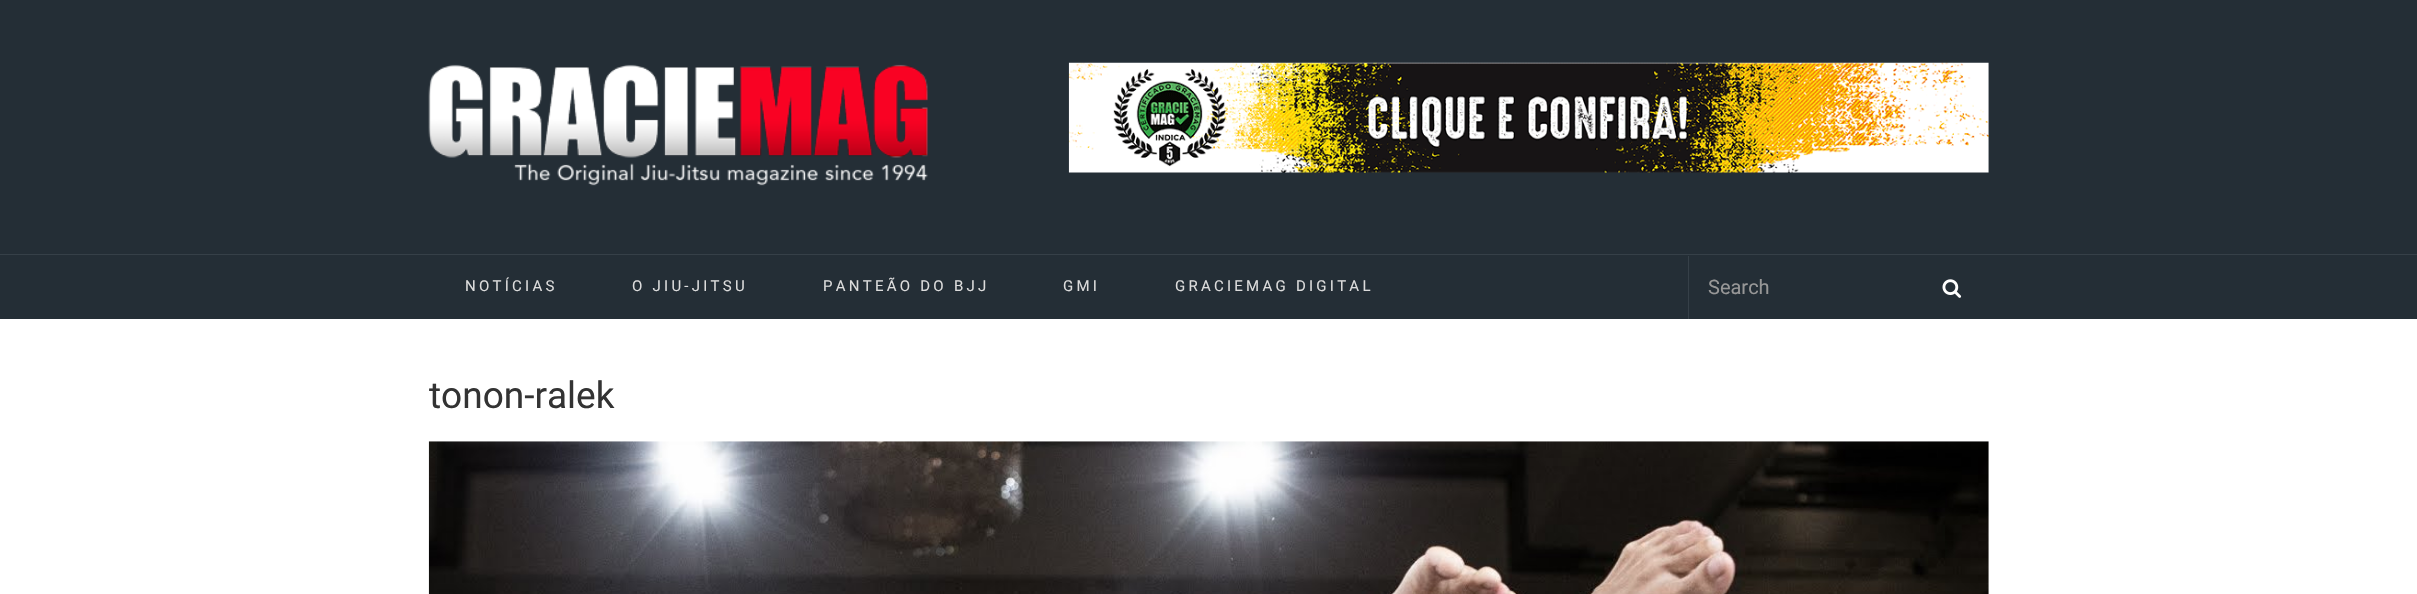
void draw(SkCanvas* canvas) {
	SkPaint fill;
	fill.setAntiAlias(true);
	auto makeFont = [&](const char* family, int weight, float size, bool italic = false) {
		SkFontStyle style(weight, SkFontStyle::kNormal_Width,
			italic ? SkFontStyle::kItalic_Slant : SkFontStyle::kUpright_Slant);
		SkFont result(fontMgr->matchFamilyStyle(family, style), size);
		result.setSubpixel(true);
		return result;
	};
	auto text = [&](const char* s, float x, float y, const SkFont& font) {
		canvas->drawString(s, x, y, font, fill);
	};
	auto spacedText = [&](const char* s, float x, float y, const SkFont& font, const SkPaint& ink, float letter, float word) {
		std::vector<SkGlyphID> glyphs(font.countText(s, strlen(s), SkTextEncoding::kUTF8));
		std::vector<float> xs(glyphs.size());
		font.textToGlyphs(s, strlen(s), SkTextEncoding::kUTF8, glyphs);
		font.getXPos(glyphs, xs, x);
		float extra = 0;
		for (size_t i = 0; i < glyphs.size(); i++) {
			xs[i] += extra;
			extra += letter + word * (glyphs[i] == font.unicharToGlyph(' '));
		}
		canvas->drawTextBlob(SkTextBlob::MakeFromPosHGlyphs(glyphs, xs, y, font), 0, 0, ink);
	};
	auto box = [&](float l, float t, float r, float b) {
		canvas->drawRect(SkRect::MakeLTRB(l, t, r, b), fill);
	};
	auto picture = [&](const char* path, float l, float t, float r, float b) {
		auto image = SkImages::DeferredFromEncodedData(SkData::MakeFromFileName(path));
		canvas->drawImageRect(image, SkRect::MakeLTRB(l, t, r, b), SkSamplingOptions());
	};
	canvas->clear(0xFFFFFFFF);
	fill.setColor(0xFF242E36);
	box(0, 0, 2417, 319);
	picture("image0.png", 428, 64, 928, 186);
	picture("image1.png", 1068, 62, 1989, 173);
	fill.setColor(0xFF364048);
	box(0, 254, 2417, 255);
	picture("image2.png", 1942, 279, 1962, 298);
	box(1688, 256, 1689, 319);
	picture("image3.png", 428, 441, 1989, 594);
	auto font1 = makeFont("Roboto", 400, 15);
	fill.setColor(0xFFDCDCDC);
	spacedText("NOTÍCIAS", 465, 291, font1, fill, 3.25f, 0);
	spacedText("O JIU-JITSU", 632, 291, font1, fill, 3.25f, 0);
	spacedText("PANTEÃO DO BJJ", 823, 291, font1, fill, 3.25f, 0);
	spacedText("GMI", 1063, 291, font1, fill, 3.25f, 0);
	spacedText("GRACIEMAG DIGITAL", 1175, 291, font1, fill, 3.25f, 0);
	auto font2 = makeFont("Roboto", 400, 20);
	fill.setColor(0xFF979797);
	text("Search", 1708, 294, font2);
	auto font3 = makeFont("Roboto", 400, 37);
	fill.setColor(0xFF333333);
	text("tonon-ralek", 429, 408, font3);
}
